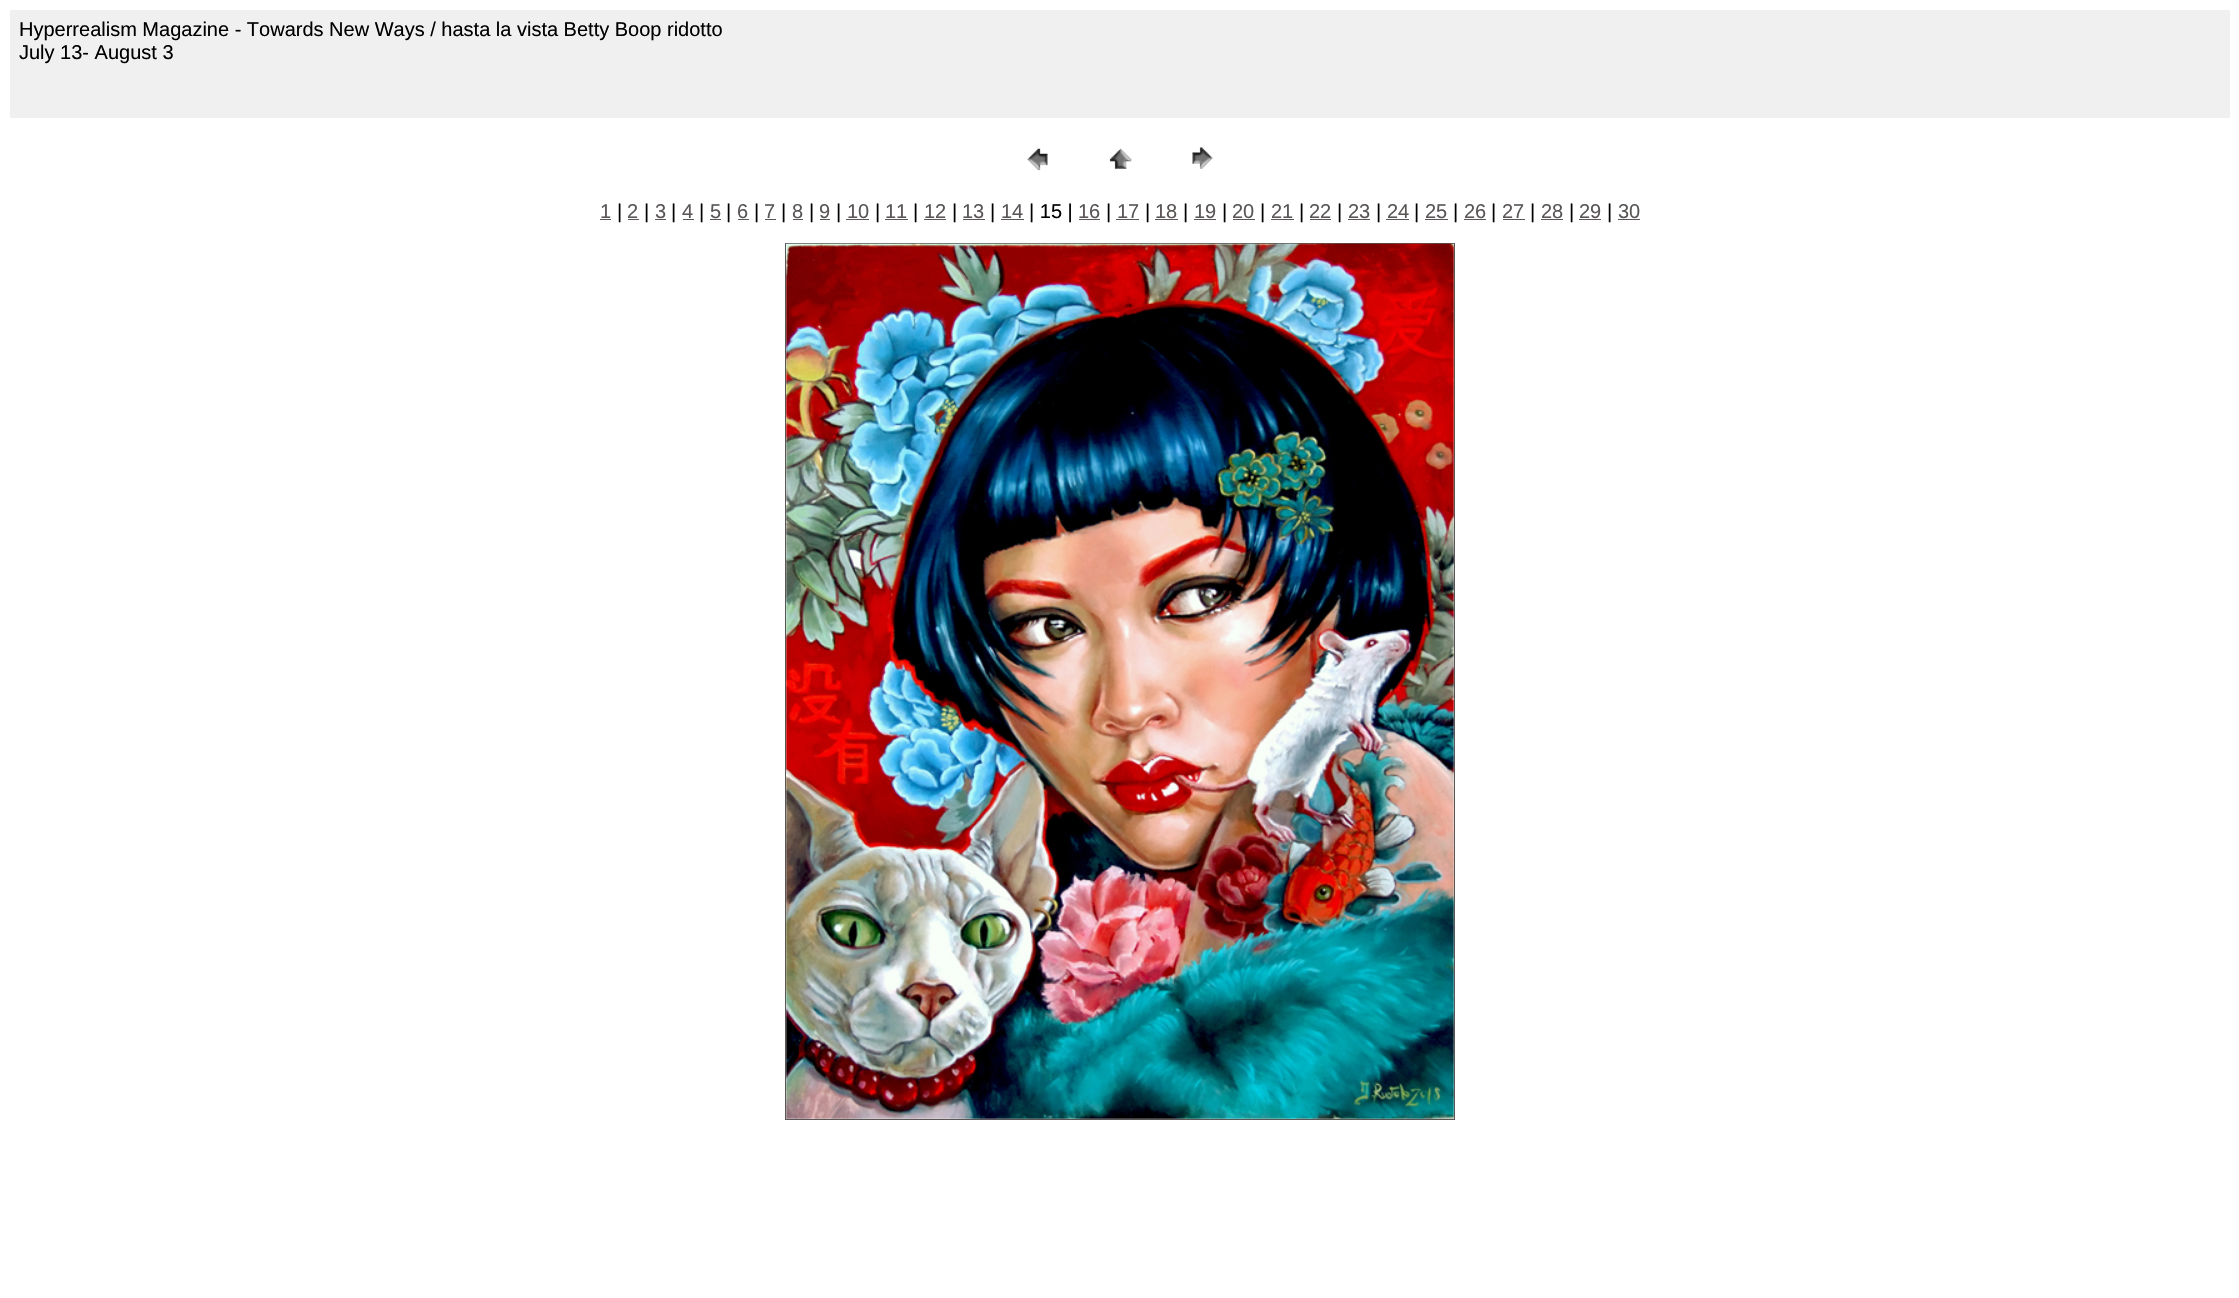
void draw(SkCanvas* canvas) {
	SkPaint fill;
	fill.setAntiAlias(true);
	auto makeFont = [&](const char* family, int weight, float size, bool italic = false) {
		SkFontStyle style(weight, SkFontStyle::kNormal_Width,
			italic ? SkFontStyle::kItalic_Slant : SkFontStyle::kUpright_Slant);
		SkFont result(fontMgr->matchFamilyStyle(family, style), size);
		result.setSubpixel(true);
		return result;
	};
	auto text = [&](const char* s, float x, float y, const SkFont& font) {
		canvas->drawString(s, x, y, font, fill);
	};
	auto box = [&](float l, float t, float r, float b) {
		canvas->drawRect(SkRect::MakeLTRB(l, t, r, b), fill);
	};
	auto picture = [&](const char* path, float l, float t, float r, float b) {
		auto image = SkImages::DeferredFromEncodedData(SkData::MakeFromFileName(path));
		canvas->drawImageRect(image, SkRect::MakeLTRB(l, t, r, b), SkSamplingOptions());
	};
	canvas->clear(0xFFFFFFFF);
	fill.setColor(0xFFF0F0F0);
	box(10, 10, 2230, 118);
	picture("image0.png", 1027, 148, 1048, 171);
	picture("image1.png", 1109, 148, 1132, 169);
	picture("image2.png", 1192, 147, 1213, 169);
	fill.setColor(0xFF5A5656);
	box(600, 219, 611, 220);
	box(628, 219, 639, 220);
	box(655, 219, 666, 220);
	box(683, 219, 694, 220);
	box(710, 219, 721, 220);
	box(738, 219, 749, 220);
	box(765, 219, 776, 220);
	box(793, 219, 803, 220);
	box(820, 219, 830, 220);
	box(846, 219, 869, 220);
	box(885, 219, 908, 220);
	box(924, 219, 946, 220);
	box(963, 219, 985, 220);
	box(1001, 219, 1024, 220);
	box(1079, 219, 1100, 220);
	box(1116, 219, 1139, 220);
	box(1155, 219, 1178, 220);
	box(1194, 219, 1216, 220);
	box(1233, 219, 1255, 220);
	box(1271, 219, 1294, 220);
	box(1310, 219, 1331, 220);
	box(1348, 219, 1370, 220);
	box(1386, 219, 1409, 220);
	box(1425, 219, 1448, 220);
	box(1464, 219, 1486, 220);
	box(1503, 219, 1525, 220);
	box(1541, 219, 1563, 220);
	box(1579, 219, 1601, 220);
	box(1618, 219, 1640, 220);
	fill.setStyle(SkPaint::kStroke_Style);
	fill.setStrokeWidth(1);
	canvas->drawRect(SkRect::MakeLTRB(785.5f, 243.5f, 1454.5f, 1119.5f), fill);
	picture("image3.png", 786, 243, 1454, 1119);
	auto font1 = makeFont("Liberation Sans", 400, 20);
	fill.setStyle(SkPaint::kFill_Style);
	fill.setColor(0xFF000000);
	text("Hyperrealism Magazine - Towards New Ways / hasta la vista Betty Boop ridotto", 19, 36, font1);
	text("July 13- August 3", 19, 59, font1);
	fill.setColor(0xFF5A5656);
	text("1", 600, 218, font1);
	fill.setColor(0xFF000000);
	text("|", 617, 218, font1);
	fill.setColor(0xFF5A5656);
	text("2", 627, 218, font1);
	fill.setColor(0xFF000000);
	text("|", 644, 218, font1);
	fill.setColor(0xFF5A5656);
	text("3", 655, 218, font1);
	fill.setColor(0xFF000000);
	text("|", 671, 218, font1);
	fill.setColor(0xFF5A5656);
	text("4", 682, 218, font1);
	fill.setColor(0xFF000000);
	text("|", 699, 218, font1);
	fill.setColor(0xFF5A5656);
	text("5", 710, 218, font1);
	fill.setColor(0xFF000000);
	text("|", 726, 218, font1);
	fill.setColor(0xFF5A5656);
	text("6", 737, 218, font1);
	fill.setColor(0xFF000000);
	text("|", 754, 218, font1);
	fill.setColor(0xFF5A5656);
	text("7", 764, 218, font1);
	fill.setColor(0xFF000000);
	text("|", 781, 218, font1);
	fill.setColor(0xFF5A5656);
	text("8", 792, 218, font1);
	fill.setColor(0xFF000000);
	text("|", 809, 218, font1);
	fill.setColor(0xFF5A5656);
	text("9", 819, 218, font1);
	fill.setColor(0xFF000000);
	text("|", 836, 218, font1);
	fill.setColor(0xFF5A5656);
	text("10", 847, 218, font1);
	fill.setColor(0xFF000000);
	text("|", 875, 218, font1);
	fill.setColor(0xFF5A5656);
	text("11", 885, 218, font1);
	fill.setColor(0xFF000000);
	text("|", 913, 218, font1);
	fill.setColor(0xFF5A5656);
	text("12", 924, 218, font1);
	fill.setColor(0xFF000000);
	text("|", 952, 218, font1);
	fill.setColor(0xFF5A5656);
	text("13", 962, 218, font1);
	fill.setColor(0xFF000000);
	text("|", 990, 218, font1);
	fill.setColor(0xFF5A5656);
	text("14", 1001, 218, font1);
	fill.setColor(0xFF000000);
	text("| 15 |", 1029, 218, font1);
	fill.setColor(0xFF5A5656);
	text("16", 1078, 218, font1);
	fill.setColor(0xFF000000);
	text("|", 1106, 218, font1);
	fill.setColor(0xFF5A5656);
	text("17", 1117, 218, font1);
	fill.setColor(0xFF000000);
	text("|", 1145, 218, font1);
	fill.setColor(0xFF5A5656);
	text("18", 1155, 218, font1);
	fill.setColor(0xFF000000);
	text("|", 1183, 218, font1);
	fill.setColor(0xFF5A5656);
	text("19", 1194, 218, font1);
	fill.setColor(0xFF000000);
	text("|", 1222, 218, font1);
	fill.setColor(0xFF5A5656);
	text("20", 1232, 218, font1);
	fill.setColor(0xFF000000);
	text("|", 1260, 218, font1);
	fill.setColor(0xFF5A5656);
	text("21", 1271, 218, font1);
	fill.setColor(0xFF000000);
	text("|", 1299, 218, font1);
	fill.setColor(0xFF5A5656);
	text("22", 1309, 218, font1);
	fill.setColor(0xFF000000);
	text("|", 1337, 218, font1);
	fill.setColor(0xFF5A5656);
	text("23", 1348, 218, font1);
	fill.setColor(0xFF000000);
	text("|", 1376, 218, font1);
	fill.setColor(0xFF5A5656);
	text("24", 1387, 218, font1);
	fill.setColor(0xFF000000);
	text("|", 1414, 218, font1);
	fill.setColor(0xFF5A5656);
	text("25", 1425, 218, font1);
	fill.setColor(0xFF000000);
	text("|", 1453, 218, font1);
	fill.setColor(0xFF5A5656);
	text("26", 1464, 218, font1);
	fill.setColor(0xFF000000);
	text("|", 1491, 218, font1);
	fill.setColor(0xFF5A5656);
	text("27", 1502, 218, font1);
	fill.setColor(0xFF000000);
	text("|", 1530, 218, font1);
	fill.setColor(0xFF5A5656);
	text("28", 1541, 218, font1);
	fill.setColor(0xFF000000);
	text("|", 1569, 218, font1);
	fill.setColor(0xFF5A5656);
	text("29", 1579, 218, font1);
	fill.setColor(0xFF000000);
	text("|", 1607, 218, font1);
	fill.setColor(0xFF5A5656);
	text("30", 1618, 218, font1);
}
